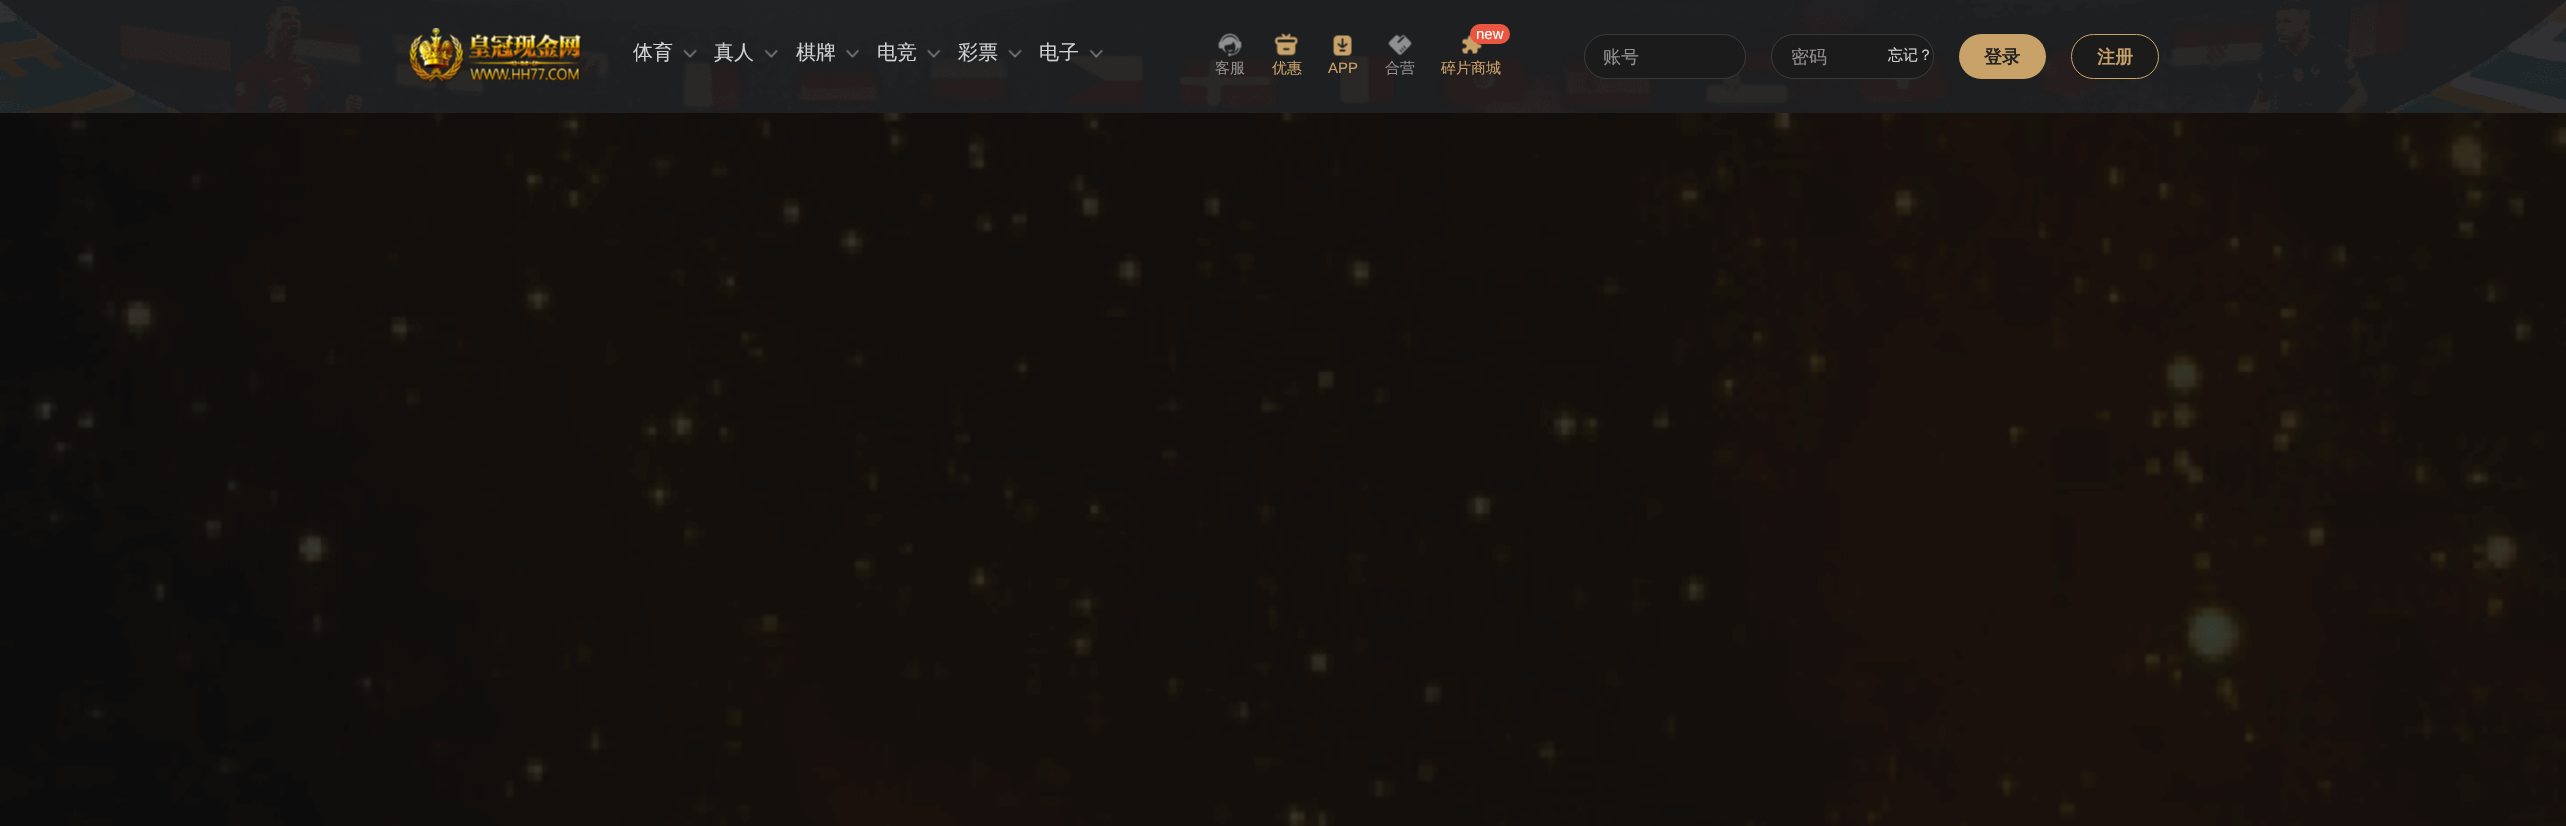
void draw(SkCanvas* canvas) {
	SkPaint fill;
	fill.setAntiAlias(true);
	auto makeFont = [&](const char* family, int weight, float size, bool italic = false) {
		SkFontStyle style(weight, SkFontStyle::kNormal_Width,
			italic ? SkFontStyle::kItalic_Slant : SkFontStyle::kUpright_Slant);
		SkFont result(fontMgr->matchFamilyStyle(family, style), size);
		result.setSubpixel(true);
		return result;
	};
	auto text = [&](const char* s, float x, float y, const SkFont& font) {
		canvas->drawString(s, x, y, font, fill);
	};
	auto box = [&](float l, float t, float r, float b) {
		canvas->drawRect(SkRect::MakeLTRB(l, t, r, b), fill);
	};
	auto roundBox = [&](float l, float t, float r, float b, float radius) {
		canvas->drawRoundRect(SkRect::MakeLTRB(l, t, r, b), radius, radius, fill);
	};
	auto picture = [&](const char* path, float l, float t, float r, float b) {
		auto image = SkImages::DeferredFromEncodedData(SkData::MakeFromFileName(path));
		canvas->drawImageRect(image, SkRect::MakeLTRB(l, t, r, b), SkSamplingOptions());
	};
	canvas->clear(0xFFFFFFFF);
	fill.setColor(0xFF1B1B1B);
	box(0, 0, 2566, 113);
	picture("image0.png", 0, 0, 2566, 113);
	picture("image1.png", 409, 28, 582, 83);
	picture("image2.png", 683, 49, 697, 58);
	picture("image3.png", 764, 49, 778, 58);
	picture("image4.png", 846, 49, 859, 58);
	picture("image5.png", 927, 49, 941, 58);
	picture("image6.png", 1008, 49, 1022, 58);
	picture("image7.png", 1089, 49, 1103, 58);
	picture("image8.png", 1218, 33, 1242, 57);
	picture("image9.png", 1274, 33, 1298, 56);
	picture("image10.png", 1333, 35, 1352, 56);
	picture("image11.png", 1388, 34, 1412, 56);
	picture("image12.png", 1462, 35, 1482, 54);
	fill.setColor(0xFFEB5641);
	roundBox(1470, 24, 1510, 44, 10);
	fill.setColor(0xFF1B1B1B);
	roundBox(1584, 34, 1746, 79, 22.5f);
	fill.setStyle(SkPaint::kStroke_Style);
	fill.setStrokeWidth(1);
	fill.setColor(0x26E5E5E5);
	canvas->drawRoundRect(SkRect::MakeLTRB(1584.5f, 34.5f, 1745.5f, 78.5f), 22, 22, fill);
	fill.setStyle(SkPaint::kFill_Style);
	fill.setColor(0xFF1B1B1B);
	roundBox(1771, 34, 1934, 79, 22.5f);
	fill.setStyle(SkPaint::kStroke_Style);
	fill.setColor(0x26E5E5E5);
	canvas->drawRoundRect(SkRect::MakeLTRB(1771.5f, 34.5f, 1933.5f, 78.5f), 22, 22, fill);
	fill.setStyle(SkPaint::kFill_Style);
	fill.setColor(0xFFC9A269);
	roundBox(1959, 34, 2046, 79, 22.5f);
	fill.setColor(0xFF1B1B1B);
	canvas->drawRoundRect(SkRect::MakeLTRB(2071.5f, 34.5f, 2158.5f, 78.5f), 22, 22, fill);
	fill.setStyle(SkPaint::kStroke_Style);
	fill.setColor(0xFFC9A269);
	canvas->drawRoundRect(SkRect::MakeLTRB(2071.5f, 34.5f, 2158.5f, 78.5f), 22, 22, fill);
	picture("image13.png", 0, 113, 2566, 826);
	auto font1 = makeFont("WenQuanYi Zen Hei", 500, 20);
	fill.setStyle(SkPaint::kFill_Style);
	fill.setColor(0xFFD2D2D3);
	text("体育", 633, 59, font1);
	text("真人", 714, 59, font1);
	text("棋牌", 796, 59, font1);
	text("电竞", 877, 59, font1);
	text("彩票", 958, 59, font1);
	text("电子", 1039, 59, font1);
	auto font2 = makeFont("WenQuanYi Zen Hei", 500, 15);
	fill.setColor(0xFF928F8F);
	text("客服", 1215, 73, font2);
	fill.setColor(0xFFC9A269);
	text("优惠", 1272, 73, font2);
	auto font3 = makeFont("Liberation Sans", 400, 15);
	text("APP", 1328, 73, font3);
	fill.setColor(0xFF928F8F);
	text("合营", 1385, 73, font2);
	fill.setColor(0xFFFFFFFF);
	text("new", 1476, 39, font3);
	fill.setColor(0xFFC9A269);
	text("碎片商城", 1441, 73, font2);
	auto font4 = makeFont("WenQuanYi Zen Hei", 500, 18);
	fill.setColor(0xFF928F8F);
	text("账号", 1603, 63, font4);
	text("密码", 1791, 63, font4);
	fill.setColor(0xFFD2D2D3);
	text("忘记？", 1888, 60, font2);
	auto font5 = makeFont("WenQuanYi Zen Hei", 700, 18);
	fill.setColor(0xFF222222);
	text("登录", 1984, 63, font5);
	fill.setColor(0xFFC9A269);
	text("注册", 2097, 63, font5);
}
